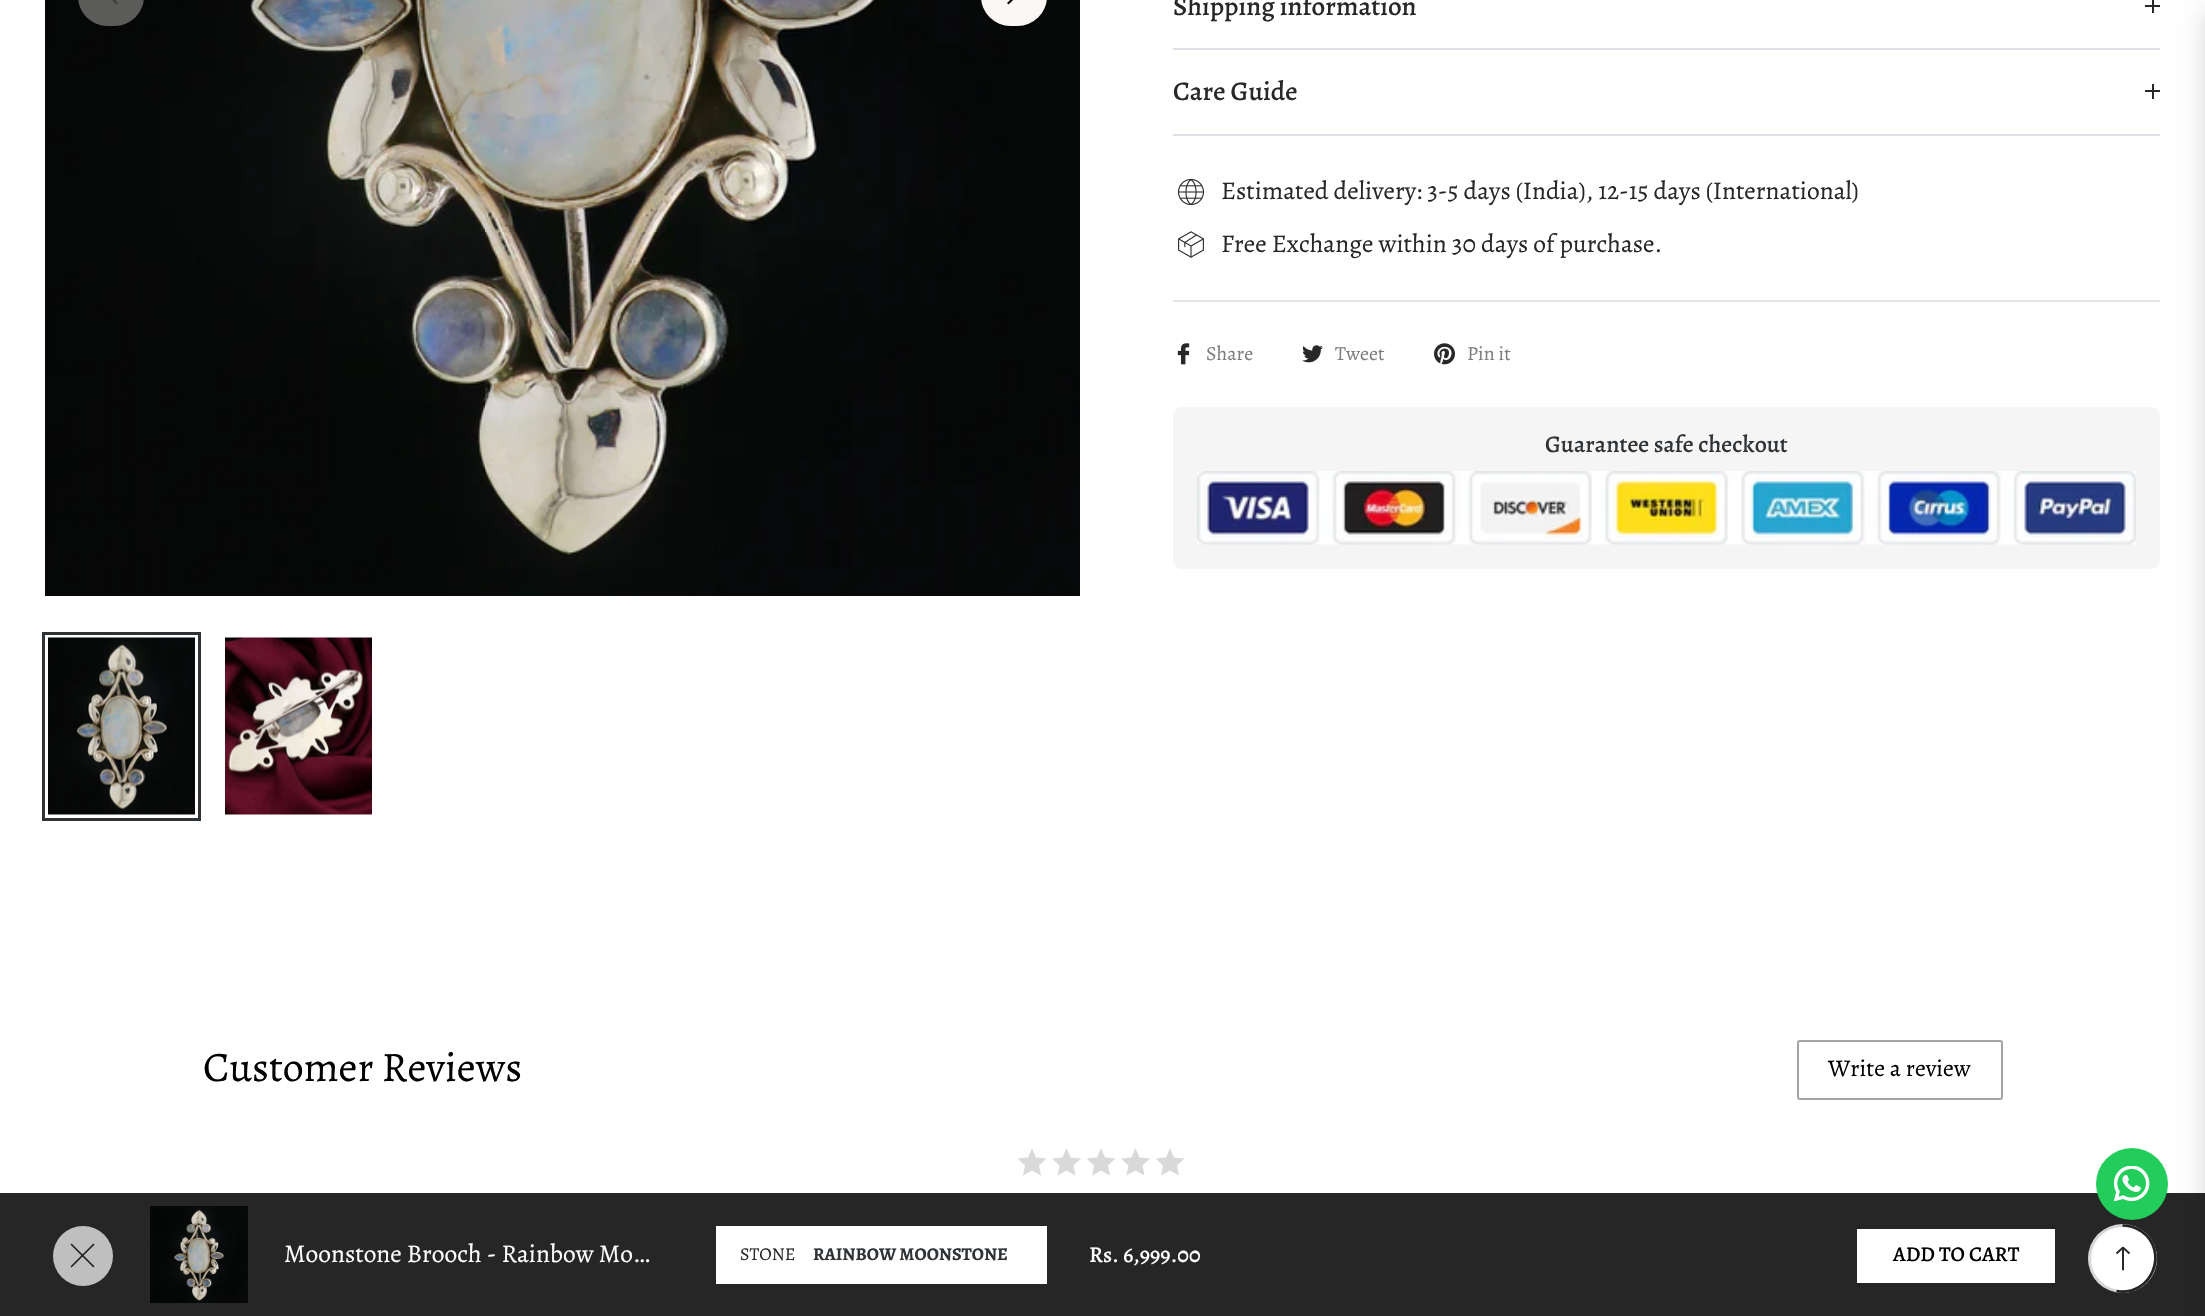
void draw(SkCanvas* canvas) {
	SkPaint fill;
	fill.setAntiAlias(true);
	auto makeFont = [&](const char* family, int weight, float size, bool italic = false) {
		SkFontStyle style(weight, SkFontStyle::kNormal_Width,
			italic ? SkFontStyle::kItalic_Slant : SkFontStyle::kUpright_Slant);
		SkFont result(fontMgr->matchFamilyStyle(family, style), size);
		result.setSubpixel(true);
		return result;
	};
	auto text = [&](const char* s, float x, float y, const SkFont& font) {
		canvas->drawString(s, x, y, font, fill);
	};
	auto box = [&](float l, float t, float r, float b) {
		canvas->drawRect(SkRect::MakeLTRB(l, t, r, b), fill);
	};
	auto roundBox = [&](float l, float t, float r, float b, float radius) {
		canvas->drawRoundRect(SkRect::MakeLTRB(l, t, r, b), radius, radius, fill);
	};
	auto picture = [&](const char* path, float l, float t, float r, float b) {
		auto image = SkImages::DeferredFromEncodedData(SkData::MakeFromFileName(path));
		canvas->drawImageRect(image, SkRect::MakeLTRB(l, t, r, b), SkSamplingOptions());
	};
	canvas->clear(0xFFFFFFFF);
	picture("image2.png", 45, 0, 1080, 596);
	fill.setColor(0xFF5B5B5A);
	roundBox(78, -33, 144, 26, 33);
	picture("image0.png", 112, 0, 118, 5);
	fill.setColor(0xFFFBF7F5);
	roundBox(981, -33, 1047, 26, 33);
	picture("image1.png", 1007, 0, 1013, 5);
	fill.setStyle(SkPaint::kStroke_Style);
	fill.setStrokeWidth(3);
	fill.setColor(0xFF2F3336);
	canvas->drawRect(SkRect::MakeLTRB(43.5f, 633.5f, 199.5f, 819.5f), fill);
	picture("image3.png", 48, 637, 195, 815);
	picture("image4.png", 225, 637, 372, 815);
	fill.setStyle(SkPaint::kFill_Style);
	fill.setColor(0xFFDEE2E6);
	box(1173, 48, 2160, 50);
	fill.setColor(0xFF282828);
	box(2152, 0, 2154, 13);
	box(2145, 5, 2160, 7);
	fill.setColor(0xFFDEE2E6);
	box(1173, 134, 2160, 136);
	fill.setColor(0xFF282828);
	box(2152, 84, 2154, 99);
	box(2145, 90, 2160, 92);
	picture("image5.png", 1178, 179, 1204, 205);
	picture("image6.png", 1178, 231, 1204, 258);
	fill.setColor(0xFFE6E6E6);
	box(1173, 300, 2160, 302);
	picture("image7.png", 1177, 343, 1190, 365);
	picture("image8.png", 1302, 345, 1323, 363);
	picture("image9.png", 1434, 343, 1455, 365);
	fill.setColor(0xFFF5F5F6);
	roundBox(1173, 407, 2160, 569, 9);
	picture("image10.png", 1197, 471, 2136, 545);
	fill.setColor(0xFF262626);
	box(0, 1193, 2205, 1316);
	fill.setColor(0xFFBFBFBF);
	canvas->drawCircle(83, 1256, 30, fill);
	picture("image11.png", 70, 1243, 95, 1268);
	picture("image12.png", 150, 1206, 248, 1303);
	fill.setColor(0xFFFFFFFF);
	box(716, 1226, 1047, 1284);
	box(1857, 1229, 2055, 1283);
	fill.setStyle(SkPaint::kStroke_Style);
	fill.setStrokeWidth(2);
	fill.setColor(0xFFA5A5A5);
	canvas->drawRoundRect(SkRect::MakeLTRB(1798, 1041, 2002, 1099), 2, 2, fill);
	fill.setStyle(SkPaint::kFill_Style);
	fill.setColor(0xFFD9D9D9);
	canvas->drawPath(SkPathBuilder().moveTo(1032, 1148).lineTo(1036, 1157.5f).lineTo(1046.5f, 1158.5f).lineTo(1039, 1165.5f).lineTo(1041, 1175.5f).lineTo(1032, 1170.5f).lineTo(1023, 1175.5f).lineTo(1025, 1165.5f).lineTo(1017.5f, 1158.5f).lineTo(1028, 1157.5f).close().detach(), fill);
	canvas->drawPath(SkPathBuilder().moveTo(1066.5f, 1148).lineTo(1070.5f, 1157.5f).lineTo(1081, 1158.5f).lineTo(1073.5f, 1165.5f).lineTo(1075.5f, 1175.5f).lineTo(1066.5f, 1170.5f).lineTo(1057.5f, 1175.5f).lineTo(1059.5f, 1165.5f).lineTo(1052, 1158.5f).lineTo(1062.5f, 1157.5f).close().detach(), fill);
	canvas->drawPath(SkPathBuilder().moveTo(1101, 1148).lineTo(1105, 1157.5f).lineTo(1115.5f, 1158.5f).lineTo(1108, 1165.5f).lineTo(1110, 1175.5f).lineTo(1101, 1170.5f).lineTo(1092, 1175.5f).lineTo(1094, 1165.5f).lineTo(1086.5f, 1158.5f).lineTo(1097, 1157.5f).close().detach(), fill);
	canvas->drawPath(SkPathBuilder().moveTo(1135.5f, 1148).lineTo(1139.5f, 1157.5f).lineTo(1150, 1158.5f).lineTo(1142.5f, 1165.5f).lineTo(1144.5f, 1175.5f).lineTo(1135.5f, 1170.5f).lineTo(1126.5f, 1175.5f).lineTo(1128.5f, 1165.5f).lineTo(1121, 1158.5f).lineTo(1131.5f, 1157.5f).close().detach(), fill);
	canvas->drawPath(SkPathBuilder().moveTo(1170, 1148).lineTo(1174, 1157.5f).lineTo(1184.5f, 1158.5f).lineTo(1177, 1165.5f).lineTo(1179, 1175.5f).lineTo(1170, 1170.5f).lineTo(1161, 1175.5f).lineTo(1163, 1165.5f).lineTo(1155.5f, 1158.5f).lineTo(1166, 1157.5f).close().detach(), fill);
	fill.setColor(0xFF22CD5B);
	canvas->drawCircle(2132, 1184, 36, fill);
	picture("image13.png", 2114, 1166, 2150, 1202);
	fill.setColor(0x26000000);
	fill.setMaskFilter(SkMaskFilter::MakeBlur(kNormal_SkBlurStyle, 12));
	canvas->drawRect(SkRect::MakeLTRB(2205, 12, 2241, 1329), fill);
	fill.setMaskFilter(nullptr);
	fill.setColor(0xFFFFFFFF);
	canvas->drawCircle(2122.5f, 1258.5f, 34.5f, fill);
	fill.setStyle(SkPaint::kStroke_Style);
	fill.setStrokeWidth(3);
	fill.setColor(0x332F3336);
	canvas->drawCircle(2122.5f, 1258.5f, 33, fill);
	fill.setStrokeWidth(2.7f);
	fill.setColor(0xFF222222);
	canvas->drawPath(SkPathBuilder().moveTo(2122.5f, 1225.5f).cubicTo(2129, 1225.5f, 2135.5f, 1227.5f, 2141, 1231).cubicTo(2170.5f, 1251, 2151, 1297.5f, 2116.5f, 1291).detach(), fill);
	canvas->save();
	canvas->clipPath(SkPathBuilder().moveTo(2110.5f, 1270.5f).lineTo(2110.5f, 1246.5f).lineTo(2134.5f, 1246.5f).lineTo(2134.5f, 1270.5f).close().detach(), true);
	fill.setStrokeWidth(2);
	fill.setColor(0xFF282828);
	canvas->drawPath(SkPathBuilder().moveTo(2129.5f, 1253.5f).lineTo(2123, 1247.5f).lineTo(2116.5f, 1253.5f).moveTo(2123, 1247.5f).lineTo(2123, 1270.5f).detach(), fill);
	canvas->restore();
	auto font1 = makeFont("Alegreya", 500, 27);
	fill.setStyle(SkPaint::kFill_Style);
	text("Shipping information", 1173, 15, font1);
	text("Care Guide", 1173, 100, font1);
	auto font2 = makeFont("Alegreya", 400, 25.5f);
	text("Estimated delivery: 3-5 days (India), 12-15 days (International)", 1221, 199, font2);
	text("Free Exchange within 30 days of purchase.", 1221, 252, font2);
	auto font3 = makeFont("Alegreya", 400, 20);
	fill.setColor(0xFF7E7E7E);
	text("Share", 1206, 360, font3);
	text("Tweet", 1335, 360, font3);
	text("Pin it", 1467, 360, font3);
	auto font4 = makeFont("Alegreya", 500, 24);
	fill.setColor(0xFF2F3336);
	text("Guarantee safe checkout", 1545, 452, font4);
	fill.setColor(0xFFFFFFFF);
	text("Moonstone Brooch - Rainbow Mo…", 284, 1262, font2);
	auto font5 = makeFont("Alegreya", 400, 18);
	fill.setColor(0xFF282828);
	text("STONE", 740, 1260, font5);
	auto font6 = makeFont("Alegreya", 700, 18);
	fill.setColor(0xFF2F3336);
	text("RAINBOW MOONSTONE", 813, 1260, font6);
	auto font7 = makeFont("Alegreya", 500, 22.5f);
	fill.setColor(0xFFFFFFFF);
	text("Rs. 6,999.00", 1089, 1262, font7);
	auto font8 = makeFont("Alegreya", 500, 21);
	fill.setColor(0xFF000000);
	text("ADD TO CART", 1893, 1261, font8);
	auto font9 = makeFont("Alegreya", 400, 42);
	text("Customer Reviews", 203, 1081, font9);
	auto font10 = makeFont("Alegreya", 400, 24);
	text("Write a review", 1828, 1076, font10);
}
